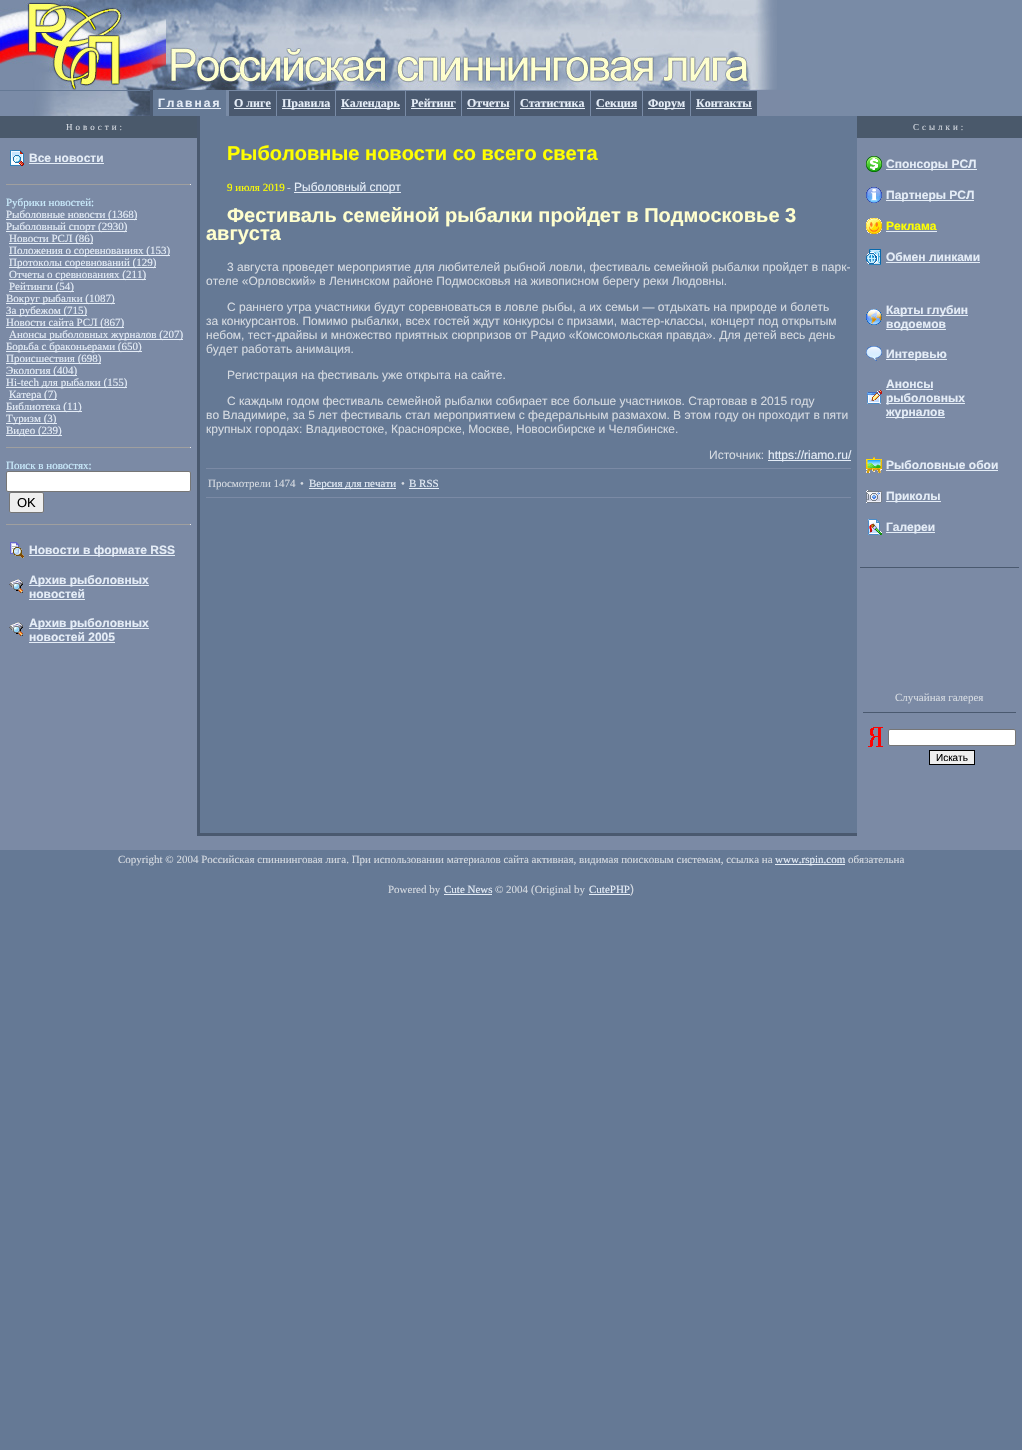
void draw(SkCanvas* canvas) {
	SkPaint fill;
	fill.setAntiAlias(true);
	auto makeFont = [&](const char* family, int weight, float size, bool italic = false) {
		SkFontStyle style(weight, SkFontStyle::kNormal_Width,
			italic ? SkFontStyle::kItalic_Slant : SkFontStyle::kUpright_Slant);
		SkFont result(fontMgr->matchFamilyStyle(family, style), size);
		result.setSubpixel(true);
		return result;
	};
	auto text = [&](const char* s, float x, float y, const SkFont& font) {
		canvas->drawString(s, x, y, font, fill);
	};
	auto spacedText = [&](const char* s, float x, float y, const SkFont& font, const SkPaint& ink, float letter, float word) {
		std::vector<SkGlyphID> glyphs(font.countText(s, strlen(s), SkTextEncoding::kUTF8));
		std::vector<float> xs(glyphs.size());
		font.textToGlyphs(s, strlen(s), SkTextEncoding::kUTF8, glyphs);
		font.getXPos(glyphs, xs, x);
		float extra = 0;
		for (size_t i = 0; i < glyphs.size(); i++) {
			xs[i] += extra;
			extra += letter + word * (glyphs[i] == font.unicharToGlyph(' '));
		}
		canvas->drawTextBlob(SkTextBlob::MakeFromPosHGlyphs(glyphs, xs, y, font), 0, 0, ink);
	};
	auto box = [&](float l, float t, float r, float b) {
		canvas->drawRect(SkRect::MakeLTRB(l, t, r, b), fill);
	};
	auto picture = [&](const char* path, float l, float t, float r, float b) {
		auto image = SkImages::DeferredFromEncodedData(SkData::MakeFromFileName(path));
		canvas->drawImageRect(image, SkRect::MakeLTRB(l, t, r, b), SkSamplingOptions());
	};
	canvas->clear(0xFF657995);
	picture("image0.png", 0, 0, 150, 90);
	fill.setColor(0xFF798BA6);
	box(777, 0, 1022, 90);
	picture("image1.png", 150, 0, 777, 90);
	picture("image2.png", 0, 91, 150, 116);
	box(226, 90, 229, 116);
	fill.setColor(0xFF4A596F);
	box(150, 90, 153, 116);
	fill.setColor(0xFFE5EDF7);
	box(158, 108, 221, 109);
	fill.setColor(0xFF4A596F);
	box(229, 91, 276, 116);
	fill.setColor(0xFF798BA6);
	box(229, 90, 758, 91);
	box(276, 90, 277, 116);
	fill.setColor(0xFFE5EDF7);
	box(234, 108, 271, 109);
	fill.setColor(0xFF4A596F);
	box(277, 91, 335, 116);
	fill.setColor(0xFF798BA6);
	box(335, 90, 336, 116);
	fill.setColor(0xFFE5EDF7);
	box(282, 108, 330, 109);
	fill.setColor(0xFF4A596F);
	box(336, 91, 405, 116);
	fill.setColor(0xFF798BA6);
	box(405, 90, 406, 116);
	fill.setColor(0xFFE5EDF7);
	box(341, 108, 400, 109);
	fill.setColor(0xFF4A596F);
	box(406, 91, 461, 116);
	fill.setColor(0xFF798BA6);
	box(461, 90, 462, 116);
	fill.setColor(0xFFE5EDF7);
	box(411, 108, 456, 109);
	fill.setColor(0xFF4A596F);
	box(462, 91, 514, 116);
	fill.setColor(0xFF798BA6);
	box(514, 90, 515, 116);
	fill.setColor(0xFFE5EDF7);
	box(467, 108, 509, 109);
	fill.setColor(0xFF4A596F);
	box(515, 91, 590, 116);
	fill.setColor(0xFF798BA6);
	box(590, 90, 591, 116);
	fill.setColor(0xFFE5EDF7);
	box(520, 108, 585, 109);
	fill.setColor(0xFF4A596F);
	box(591, 91, 642, 116);
	fill.setColor(0xFF798BA6);
	box(642, 90, 643, 116);
	fill.setColor(0xFFE5EDF7);
	box(596, 108, 637, 109);
	fill.setColor(0xFF4A596F);
	box(643, 91, 690, 116);
	fill.setColor(0xFF798BA6);
	box(690, 90, 691, 116);
	fill.setColor(0xFFE5EDF7);
	box(648, 108, 685, 109);
	fill.setColor(0xFF4A596F);
	box(691, 91, 757, 116);
	fill.setColor(0xFF798BA6);
	box(757, 90, 758, 116);
	fill.setColor(0xFFE5EDF7);
	box(696, 108, 752, 109);
	fill.setColor(0xFF7B8AA5);
	box(758, 90, 790, 116);
	fill.setColor(0xFF798BA6);
	box(790, 90, 1022, 116);
	fill.setColor(0xFF4A596B);
	box(0, 116, 197, 138);
	fill.setColor(0xFF4A596F);
	box(197, 116, 200, 138);
	fill.setColor(0xFF4A596B);
	box(857, 116, 1022, 138);
	fill.setColor(0xFF7B8AA5);
	box(0, 138, 197, 850);
	picture("image3.png", 10, 150, 24, 166);
	fill.setColor(0xFFE5EDF7);
	box(29, 163, 104, 164);
	fill.setColor(0xFF9F9F9F);
	box(6, 184, 191, 185);
	fill.setColor(0xFFEEEEEE);
	box(190, 184, 191, 185);
	fill.setColor(0xFFE5EDF7);
	box(6, 219, 137, 220);
	box(6, 231, 127, 232);
	box(9, 243, 93, 244);
	box(9, 255, 170, 256);
	box(9, 267, 156, 268);
	box(9, 279, 146, 280);
	box(9, 291, 74, 292);
	box(6, 303, 115, 304);
	box(6, 315, 87, 316);
	box(6, 327, 124, 328);
	box(9, 339, 183, 340);
	box(6, 351, 142, 352);
	box(6, 363, 101, 364);
	box(6, 375, 77, 376);
	box(6, 387, 127, 388);
	box(9, 399, 57, 400);
	box(6, 411, 82, 412);
	box(6, 423, 57, 424);
	box(6, 435, 62, 436);
	fill.setColor(0xFF9F9F9F);
	box(6, 447, 191, 448);
	fill.setColor(0xFFEEEEEE);
	box(190, 447, 191, 448);
	fill.setColor(0xFFFFFFFF);
	canvas->drawRoundRect(SkRect::MakeLTRB(6.5f, 471.5f, 190.5f, 491.5f), 1.5f, 1.5f, fill);
	fill.setStyle(SkPaint::kStroke_Style);
	fill.setStrokeWidth(1);
	fill.setColor(0xFF767676);
	canvas->drawRoundRect(SkRect::MakeLTRB(6.5f, 471.5f, 190.5f, 491.5f), 1.5f, 1.5f, fill);
	fill.setStyle(SkPaint::kFill_Style);
	fill.setColor(0xFFEFEFEF);
	canvas->drawRoundRect(SkRect::MakeLTRB(9.5f, 492.5f, 43.5f, 512.5f), 1.5f, 1.5f, fill);
	fill.setStyle(SkPaint::kStroke_Style);
	fill.setColor(0xFF767676);
	canvas->drawRoundRect(SkRect::MakeLTRB(9.5f, 492.5f, 43.5f, 512.5f), 1.5f, 1.5f, fill);
	fill.setStyle(SkPaint::kFill_Style);
	fill.setColor(0xFF9F9F9F);
	box(6, 524, 191, 525);
	fill.setColor(0xFFEEEEEE);
	box(190, 524, 191, 525);
	picture("image4.png", 10, 542, 24, 558);
	fill.setColor(0xFFE5EDF7);
	box(29, 555, 175, 556);
	picture("image5.png", 9, 579, 23, 593);
	box(29, 585, 149, 586);
	box(29, 599, 85, 600);
	picture("image5.png", 9, 622, 23, 636);
	box(29, 628, 149, 629);
	box(29, 642, 115, 643);
	fill.setColor(0xFF4A596F);
	box(197, 833, 857, 836);
	box(197, 138, 200, 836);
	fill.setColor(0xFFE5EDF7);
	box(294, 192, 401, 193);
	box(768, 460, 851, 461);
	fill.setColor(0xFF7B8AA5);
	box(206, 468, 851, 469);
	fill.setColor(0xFFE5EDF7);
	box(309, 488, 396, 489);
	box(409, 488, 439, 489);
	fill.setColor(0xFF7B8AA5);
	box(206, 497, 851, 498);
	box(857, 138, 1022, 836);
	picture("image6.png", 866, 156, 882, 172);
	fill.setColor(0xFFE5EDF7);
	box(886, 169, 977, 170);
	picture("image7.png", 866, 187, 882, 203);
	box(886, 200, 974, 201);
	picture("image8.png", 866, 218, 882, 234);
	box(886, 231, 937, 232);
	picture("image9.png", 866, 249, 881, 265);
	box(886, 262, 980, 263);
	picture("image10.png", 866, 309, 882, 325);
	box(886, 315, 968, 316);
	box(886, 329, 946, 330);
	picture("image11.png", 866, 346, 882, 361);
	box(886, 359, 947, 360);
	picture("image12.png", 867, 390, 882, 404);
	box(886, 389, 933, 390);
	box(886, 403, 965, 404);
	box(886, 417, 945, 418);
	picture("image13.png", 866, 457, 882, 473);
	box(886, 470, 998, 471);
	picture("image14.png", 866, 490, 882, 503);
	box(886, 501, 941, 502);
	picture("image15.png", 868, 519, 882, 535);
	box(886, 532, 935, 533);
	fill.setColor(0xFF4A596F);
	box(860, 567, 1019, 568);
	box(863, 712, 1016, 713);
	picture("image16.png", 868, 727, 883, 747);
	fill.setColor(0xFFFFFFFF);
	canvas->drawRoundRect(SkRect::MakeLTRB(888.5f, 729.5f, 1015.5f, 745.5f), 1.5f, 1.5f, fill);
	fill.setStyle(SkPaint::kStroke_Style);
	fill.setColor(0xFF767676);
	canvas->drawRoundRect(SkRect::MakeLTRB(888.5f, 729.5f, 1015.5f, 745.5f), 1.5f, 1.5f, fill);
	fill.setStyle(SkPaint::kFill_Style);
	fill.setColor(0xFFEFEFEF);
	canvas->drawRect(SkRect::MakeLTRB(929.5f, 750.5f, 974.5f, 764.5f), fill);
	fill.setStyle(SkPaint::kStroke_Style);
	fill.setColor(0xFF000000);
	canvas->drawRect(SkRect::MakeLTRB(929.5f, 750.5f, 974.5f, 764.5f), fill);
	fill.setStyle(SkPaint::kFill_Style);
	fill.setColor(0xFF7B8AA5);
	box(197, 836, 1022, 850);
	fill.setColor(0xFFE5EDF7);
	box(775, 864, 845, 865);
	box(444, 894, 492, 895);
	box(589, 894, 630, 895);
	auto font1 = makeFont("Liberation Sans", 700, 12);
	spacedText("Главная", 158, 107, font1, fill, 2, 0);
	auto font2 = makeFont("Liberation Serif", 700, 12);
	text("О лиге", 234, 107, font2);
	text("Правила", 282, 107, font2);
	text("Календарь", 341, 107, font2);
	text("Рейтинг", 411, 107, font2);
	text("Отчеты", 467, 107, font2);
	text("Статистика", 520, 107, font2);
	text("Секция", 596, 107, font2);
	text("Форум", 648, 107, font2);
	text("Контакты", 696, 107, font2);
	auto font3 = makeFont("Liberation Serif", 400, 9);
	fill.setColor(0xFFD5DAE1);
	spacedText("Новости:", 66, 130, font3, fill, 3, 0);
	spacedText("Cсылки:", 913, 130, font3, fill, 3, 0);
	fill.setColor(0xFFE5EDF7);
	text("Все новости", 29, 162, font1);
	auto font4 = makeFont("Liberation Serif", 400, 11);
	fill.setColor(0xFFCCEEFF);
	text("Рубрики новостей:", 6, 206, font4);
	fill.setColor(0xFFE5EDF7);
	text("Рыболовные новости (1368)", 6, 218, font4);
	text("Рыболовный спорт (2930)", 6, 230, font4);
	text("Новости РСЛ (86)", 9, 242, font4);
	text("Положения о соревнованиях (153)", 9, 254, font4);
	text("Протоколы соревнований (129)", 9, 266, font4);
	text("Отчеты о сревнованиях (211)", 9, 278, font4);
	text("Рейтинги (54)", 9, 290, font4);
	text("Вокруг рыбалки (1087)", 6, 302, font4);
	text("За рубежом (715)", 6, 314, font4);
	text("Новости сайта РСЛ (867)", 6, 326, font4);
	text("Анонсы рыболовных журналов (207)", 9, 338, font4);
	text("Борьба с браконьерами (650)", 6, 350, font4);
	text("Происшествия (698)", 6, 362, font4);
	text("Экология (404)", 6, 374, font4);
	text("Hi-tech для рыбалки (155)", 6, 386, font4);
	text("Катера (7)", 9, 398, font4);
	text("Библиотека (11)", 6, 410, font4);
	text("Туризм (3)", 6, 422, font4);
	text("Видео (239)", 6, 434, font4);
	fill.setColor(0xFFCCEEFF);
	text("Поиск в новостях:", 6, 469, font4);
	auto font5 = makeFont("Liberation Sans", 400, 13);
	fill.setColor(0xFF000000);
	text("OK", 17, 507, font5);
	fill.setColor(0xFFE5EDF7);
	text("Новости в формате RSS", 29, 554, font1);
	text("Архив рыболовных", 29, 584, font1);
	text("новостей", 29, 598, font1);
	text("Архив рыболовных", 29, 627, font1);
	text("новостей 2005", 29, 641, font1);
	auto font6 = makeFont("Liberation Sans", 700, 20);
	fill.setColor(0xFFFFFF00);
	text("Рыболовные новости со всего света", 227, 160, font6);
	text("9 июля 2019", 227, 191, font4);
	fill.setColor(0xFFD5DAE1);
	text("-", 287, 191, font4);
	auto font7 = makeFont("Liberation Sans", 400, 12);
	fill.setColor(0xFFE5EDF7);
	text("Рыболовный спорт", 294, 191, font7);
	fill.setColor(0xFFFFFFCE);
	text("Фестиваль семейной рыбалки пройдет в Подмосковье 3", 227, 222, font6);
	text("августа", 206, 240, font6);
	fill.setColor(0xFFD5DAE1);
	text("3 августа проведет мероприятие для любителей рыбной ловли, фестиваль семейной рыбалки пройдет в парк-", 227, 271, font7);
	text("отеле «Орловский» в Ленинском районе Подмосковья на живописном берегу реки Людовны.", 206, 285, font7);
	text("С раннего утра участники будут соревноваться в ловле рыбы, а их семьи — отдыхать на природе и болеть", 227, 311, font7);
	text("за конкурсантов. Помимо рыбалки, всех гостей ждут конкурсы с призами, мастер-классы, концерт под открытым", 206, 325, font7);
	text("небом, тест-драйвы и множество приятных сюрпризов от Радио «Комсомольская правда». Для детей весь день", 206, 339, font7);
	text("будет работать анимация.", 206, 353, font7);
	text("Регистрация на фестиваль уже открыта на сайте.", 227, 379, font7);
	text("С каждым годом фестиваль семейной рыбалки собирает все больше участников. Стартовав в 2015 году", 227, 405, font7);
	text("во Владимире, за 5 лет фестиваль стал мероприятием с федеральным размахом. В этом году он проходит в пяти", 206, 419, font7);
	text("крупных городах: Владивостоке, Красноярске, Москве, Новосибирске и Челябинске.", 206, 433, font7);
	text("Источник:", 709, 459, font7);
	fill.setColor(0xFFE5EDF7);
	text("https://riamo.ru/", 768, 459, font7);
	fill.setColor(0xFFD5DAE1);
	text("Просмотрели 1474", 208, 487, font4);
	text("•", 300, 487, font4);
	fill.setColor(0xFFE5EDF7);
	text("Версия для печати", 309, 487, font4);
	fill.setColor(0xFFD5DAE1);
	text("•", 401, 487, font4);
	fill.setColor(0xFFE5EDF7);
	text("В RSS", 409, 487, font4);
	text("Спонсоры РСЛ", 886, 168, font1);
	text("Партнеры РСЛ", 886, 199, font1);
	fill.setColor(0xFFFFFF00);
	text("Реклама", 886, 230, font1);
	fill.setColor(0xFFE5EDF7);
	text("Обмен линками", 886, 261, font1);
	text("Карты глубин", 886, 314, font1);
	text("водоемов", 886, 328, font1);
	text("Интервью", 886, 358, font1);
	text("Анонсы", 886, 388, font1);
	text("рыболовных", 886, 402, font1);
	text("журналов", 886, 416, font1);
	text("Рыболовные обои", 886, 469, font1);
	text("Приколы", 886, 500, font1);
	text("Галереи", 886, 531, font1);
	fill.setColor(0xFFD5DAE1);
	text("Случайная галерея", 895, 701, font4);
	auto font8 = makeFont("Liberation Sans", 400, 10);
	fill.setColor(0xFF000000);
	text("Искать", 936, 761, font8);
	fill.setColor(0xFFD5DAE1);
	text("Copyright © 2004 Российская спиннинговая лига. При использовании материалов сайта активная, видимая поисковым системам, ссылка на", 118, 863, font4);
	fill.setColor(0xFFE5EDF7);
	text("www.rspin.com", 775, 863, font4);
	fill.setColor(0xFFD5DAE1);
	text("обязательна", 848, 863, font4);
	text("Powered by", 388, 893, font4);
	fill.setColor(0xFFE5EDF7);
	text("Cute News", 444, 893, font4);
	fill.setColor(0xFFD5DAE1);
	text("© 2004", 495, 893, font4);
	text("(Original by", 531, 893, font4);
	fill.setColor(0xFFE5EDF7);
	text("CutePHP", 589, 893, font4);
	fill.setColor(0xFFD5DAE1);
	text(")", 630, 893, font7);
}
